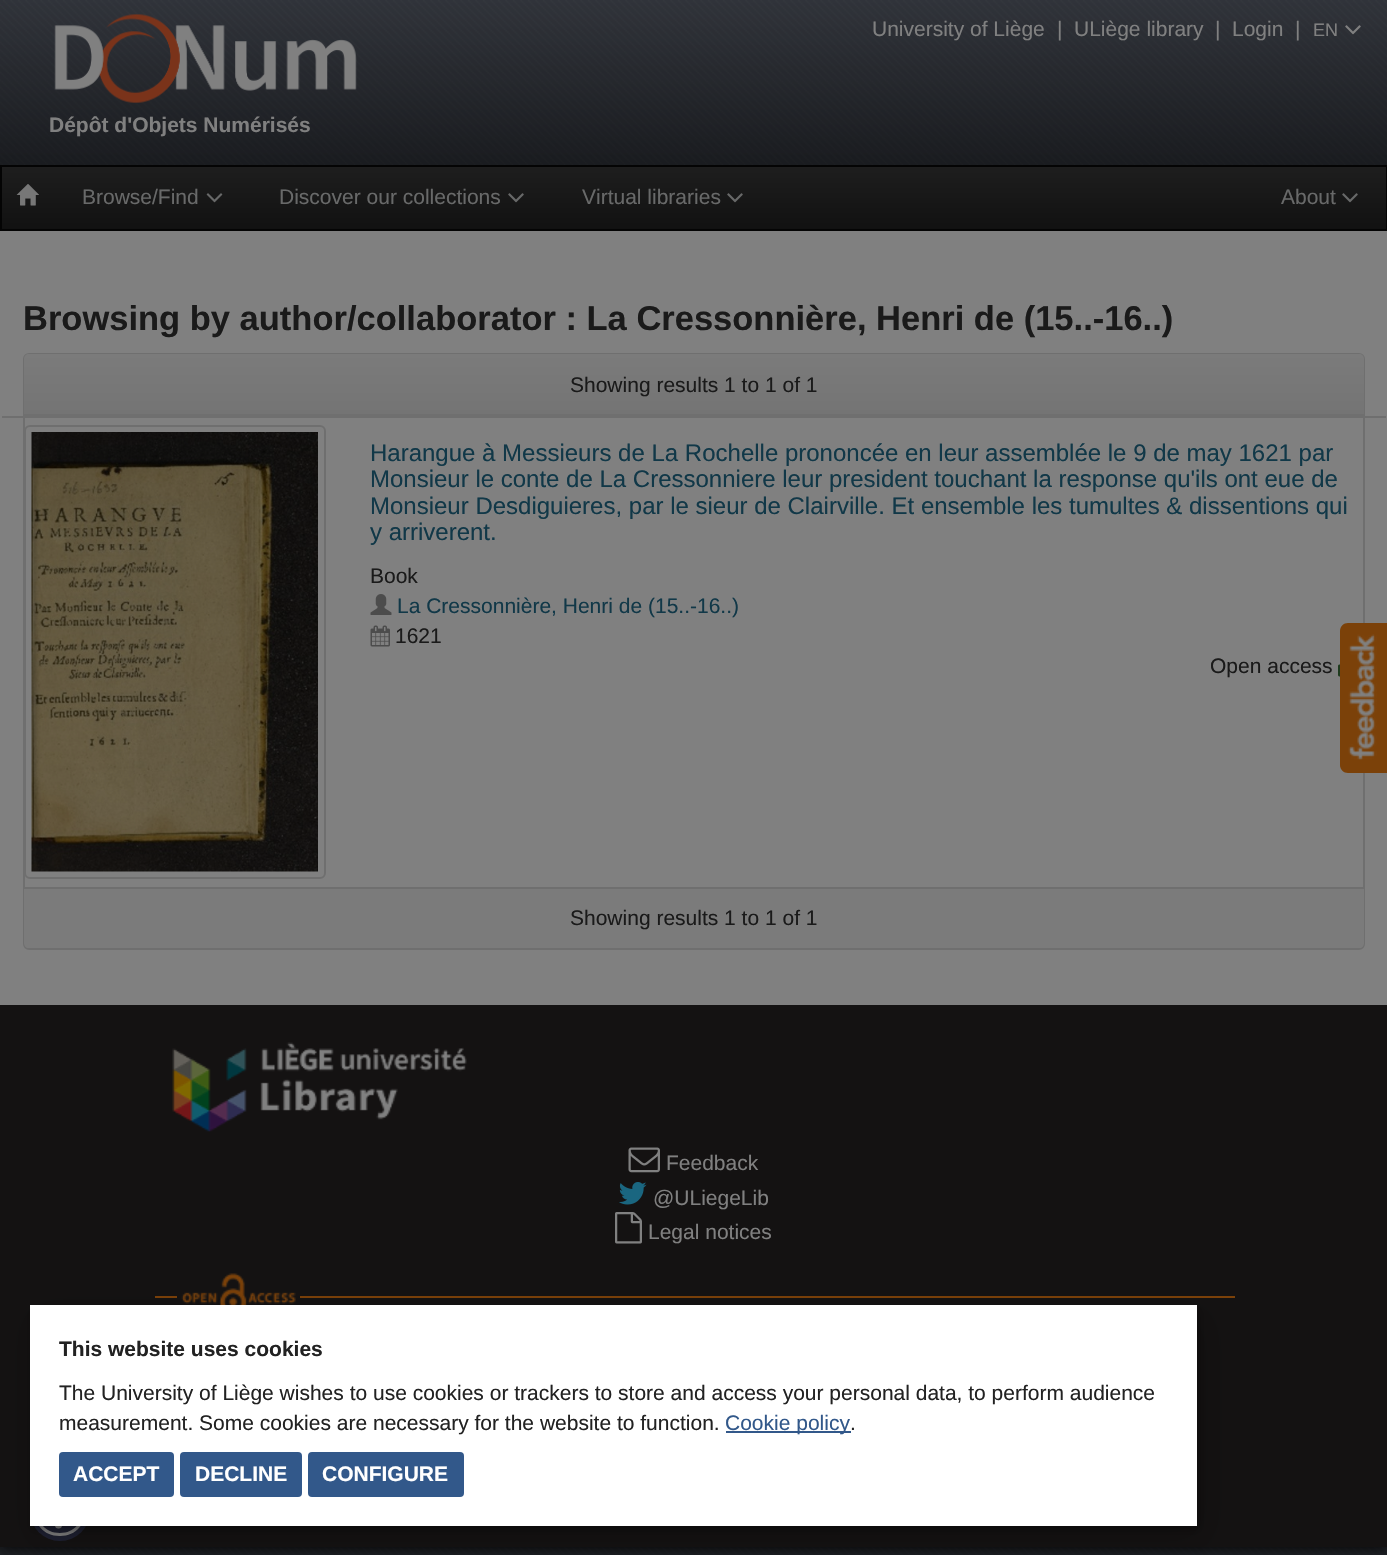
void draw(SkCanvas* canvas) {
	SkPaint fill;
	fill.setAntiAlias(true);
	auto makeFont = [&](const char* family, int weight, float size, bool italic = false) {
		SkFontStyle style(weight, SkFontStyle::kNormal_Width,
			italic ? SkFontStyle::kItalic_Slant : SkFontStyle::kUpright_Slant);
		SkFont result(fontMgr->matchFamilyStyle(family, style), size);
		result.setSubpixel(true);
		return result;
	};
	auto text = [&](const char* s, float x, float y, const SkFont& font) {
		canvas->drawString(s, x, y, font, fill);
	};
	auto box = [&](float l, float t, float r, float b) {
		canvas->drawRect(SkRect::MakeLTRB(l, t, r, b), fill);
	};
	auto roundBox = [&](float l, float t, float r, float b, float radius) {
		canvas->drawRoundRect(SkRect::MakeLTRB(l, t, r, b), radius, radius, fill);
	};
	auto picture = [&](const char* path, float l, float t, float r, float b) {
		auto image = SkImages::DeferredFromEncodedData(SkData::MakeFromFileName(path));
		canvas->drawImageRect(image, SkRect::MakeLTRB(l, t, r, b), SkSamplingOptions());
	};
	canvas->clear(0xFFFFFFFF);
	picture("image0.png", 0, 1547, 1387, 1555);
	fill.setColor(0xFF000000);
	fill.setMaskFilter(SkMaskFilter::MakeBlur(kNormal_SkBlurStyle, 6.5f));
	canvas->drawRect(SkRect::MakeLTRB(0, 0, 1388, 1547), fill);
	fill.setMaskFilter(nullptr);
	fill.setColor(0xFF808080);
	box(0, 231, 1387, 1005);
	picture("image2.png", 0, 0, 1387, 165);
	picture("image1.png", 1345, 25, 1361, 35);
	picture("image3.png", 54, 14, 357, 103);
	{
		const SkColor colors[] = {0xFF1E1E1E, 0xFF111111};
		const float stops[] = {0, 1};
		const SkPoint ends[] = {{694, 166}, {694, 230}};
		fill.setShader(SkGradientShader::MakeLinear(ends, colors, stops, 2, SkTileMode::kClamp));
		fill.setAlpha(255);
	}
	box(2, 167, 1386, 229);
	fill.setStyle(SkPaint::kStroke_Style);
	fill.setStrokeWidth(2);
	fill.setShader(nullptr);
	fill.setColor(0xFF040404);
	canvas->drawRect(SkRect::MakeLTRB(1, 166, 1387, 230), fill);
	picture("image4.png", 16, 184, 39, 206);
	picture("image5.png", 206, 193, 223, 203);
	picture("image6.png", 508, 193, 524, 203);
	picture("image6.png", 727, 193, 743, 203);
	picture("image6.png", 1342, 193, 1358, 203);
	fill.setColor(0xFF6F6F6F);
	canvas->drawRoundRect(SkRect::MakeLTRB(24, 354, 1364, 949), 5, 5, fill);
	fill.setStyle(SkPaint::kFill_Style);
	{
		const SkColor colors[] = {0xFF7B7B7B, 0xFF747474};
		const float stops[] = {0, 1};
		const SkPoint ends[] = {{694, 354}, {694, 414}};
		fill.setShader(SkGradientShader::MakeLinear(ends, colors, stops, 2, SkTileMode::kClamp));
		fill.setAlpha(255);
	}
	canvas->drawPath(SkPathBuilder().moveTo(29, 354).lineTo(1359, 354).cubicTo(1362, 354, 1364, 356, 1364, 359).lineTo(1364, 414).lineTo(24, 414).lineTo(24, 359).cubicTo(24, 356, 26, 354, 29, 354).close().detach(), fill);
	fill.setShader(nullptr);
	fill.setColor(0xFF6F6F6F);
	box(24, 414, 1364, 416);
	box(2, 416, 1386, 418);
	fill.setColor(0xFF808080);
	canvas->drawRoundRect(SkRect::MakeLTRB(25, 426, 325, 878), 5, 5, fill);
	fill.setStyle(SkPaint::kStroke_Style);
	fill.setColor(0xFF6F6F6F);
	canvas->drawRoundRect(SkRect::MakeLTRB(25, 426, 325, 878), 5, 5, fill);
	picture("image7.png", 31, 432, 318, 872);
	picture("image8.png", 370, 594, 392, 615);
	picture("image9.png", 370, 625, 390, 647);
	picture("image10.png", 1338, 664, 1340, 677);
	fill.setStyle(SkPaint::kFill_Style);
	fill.setColor(0xFF7B7B7B);
	canvas->drawPath(SkPathBuilder().moveTo(24, 887).lineTo(1364, 887).lineTo(1364, 943).cubicTo(1364, 946, 1362, 948, 1359, 948).lineTo(29, 948).cubicTo(26, 948, 24, 946, 24, 943).close().detach(), fill);
	fill.setColor(0xFF6F6F6F);
	box(24, 887, 1364, 889);
	fill.setColor(0xFF141212);
	box(0, 1005, 1387, 1547);
	picture("image11.png", 172, 1042, 467, 1132);
	picture("image12.png", 628, 1147, 660, 1173);
	picture("image13.png", 619, 1182, 647, 1205);
	picture("image14.png", 615, 1212, 642, 1244);
	fill.setColor(0xFF7B4109);
	box(155, 1296, 1235, 1298);
	fill.setColor(0xFF141212);
	box(177, 1296, 300, 1298);
	picture("image15.png", 181, 1273, 296, 1305);
	fill.setColor(0xFF7B4109);
	canvas->drawPath(SkPathBuilder().moveTo(1348, 623).lineTo(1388, 623).lineTo(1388, 773).lineTo(1348, 773).cubicTo(1343.5f, 773, 1340, 769.5f, 1340, 765).lineTo(1340, 631).cubicTo(1340, 626.5f, 1343.5f, 623, 1348, 623).close().detach(), fill);
	picture("image16.png", 1348, 634, 1377, 760);
	fill.setColor(0xFF1E2031);
	canvas->drawCircle(60, 1511, 30, fill);
	fill.setColor(0xFF808080);
	canvas->drawPath(SkPathBuilder().moveTo(60, 1485).cubicTo(26, 1485, 26, 1536, 60, 1536).cubicTo(94, 1536, 94, 1485, 60, 1485).close().moveTo(60, 1533).cubicTo(30, 1533, 30, 1488, 60, 1488).cubicTo(90, 1488, 90, 1533, 60, 1533).close().detach(), fill);
	canvas->drawCircle(58.5f, 1525, 3.5f, fill);
	fill.setColor(0x33000000);
	fill.setMaskFilter(SkMaskFilter::MakeBlur(kNormal_SkBlurStyle, 16));
	canvas->drawRect(SkRect::MakeLTRB(35, 1317, 1202, 1538), fill);
	fill.setMaskFilter(nullptr);
	fill.setColor(0x40000000);
	fill.setMaskFilter(SkMaskFilter::MakeBlur(kNormal_SkBlurStyle, 4));
	canvas->drawRect(SkRect::MakeLTRB(32, 1310, 1199, 1530), fill);
	fill.setMaskFilter(nullptr);
	fill.setColor(0xFFFFFFFF);
	box(30, 1305, 1197, 1526);
	fill.setColor(0xFF32588A);
	box(726, 1431, 851, 1433);
	roundBox(59, 1452, 174, 1497, 4);
	roundBox(180, 1452, 302, 1497, 4);
	roundBox(308, 1452, 464, 1497, 4);
	auto font1 = makeFont("Liberation Sans", 400, 21);
	fill.setColor(0xFF808080);
	text("University of Liège", 872, 36, font1);
	text("|", 1057, 36, font1);
	text("ULiège library", 1074, 36, font1);
	text("|", 1215, 36, font1);
	text("Login", 1232, 36, font1);
	text("|", 1295, 36, font1);
	auto font2 = makeFont("Liberation Sans", 400, 18);
	text("EN", 1313, 36, font2);
	auto font3 = makeFont("Liberation Sans", 700, 21);
	text("Dépôt d'Objets Numérisés", 49, 132, font3);
	fill.setColor(0xFF686969);
	text("Browse/Find", 82, 204, font1);
	text("Discover our collections", 279, 204, font1);
	text("Virtual libraries", 582, 204, font1);
	text("About", 1281, 204, font1);
	auto font4 = makeFont("Liberation Sans", 700, 34.5f);
	fill.setColor(0xFF1A1A1A);
	text("Browsing by author/collaborator : La Cressonnière, Henri de (15..-16..)", 23, 330, font4);
	text("Showing results 1 to 1 of 1", 570, 392, font1);
	auto font5 = makeFont("Liberation Sans", 400, 24);
	fill.setColor(0xFF113848);
	text("Harangue à Messieurs de La Rochelle prononcée en leur assemblée le 9 de may 1621 par", 370, 461, font5);
	text("Monsieur le conte de La Cressonniere leur president touchant la response qu'ils ont eue de", 370, 487, font5);
	text("Monsieur Desdiguieres, par le sieur de Clairville. Et ensemble les tumultes & dissentions qui", 370, 514, font5);
	text("y arriverent.", 370, 540, font5);
	fill.setColor(0xFF1A1A1A);
	text("Book", 370, 583, font1);
	fill.setColor(0xFF113848);
	text("La Cressonnière, Henri de (15..-16..)", 397, 613, font1);
	fill.setColor(0xFF1A1A1A);
	text("1621", 395, 643, font1);
	text("Open access", 1210, 673, font1);
	text("Showing results 1 to 1 of 1", 570, 925, font1);
	fill.setColor(0xFF808080);
	text("Feedback", 666, 1170, font1);
	text("@ULiegeLib", 653, 1205, font1);
	text("Legal notices", 648, 1239, font1);
	fill.setColor(0xFF222222);
	text("This website uses cookies", 59, 1356, font3);
	text("The University of Liège wishes to use cookies or trackers to store and access your personal data, to perform audience", 59, 1400, font1);
	text("measurement. Some cookies are necessary for the website to function.", 59, 1430, font1);
	fill.setColor(0xFF32588A);
	text("Cookie policy", 725, 1430, font1);
	fill.setColor(0xFF222222);
	text(".", 850, 1430, font1);
	fill.setColor(0xFFFFFFFF);
	text("ACCEPT", 73, 1481, font3);
	text("DECLINE", 195, 1481, font3);
	text("CONFIGURE", 322, 1481, font3);
}
